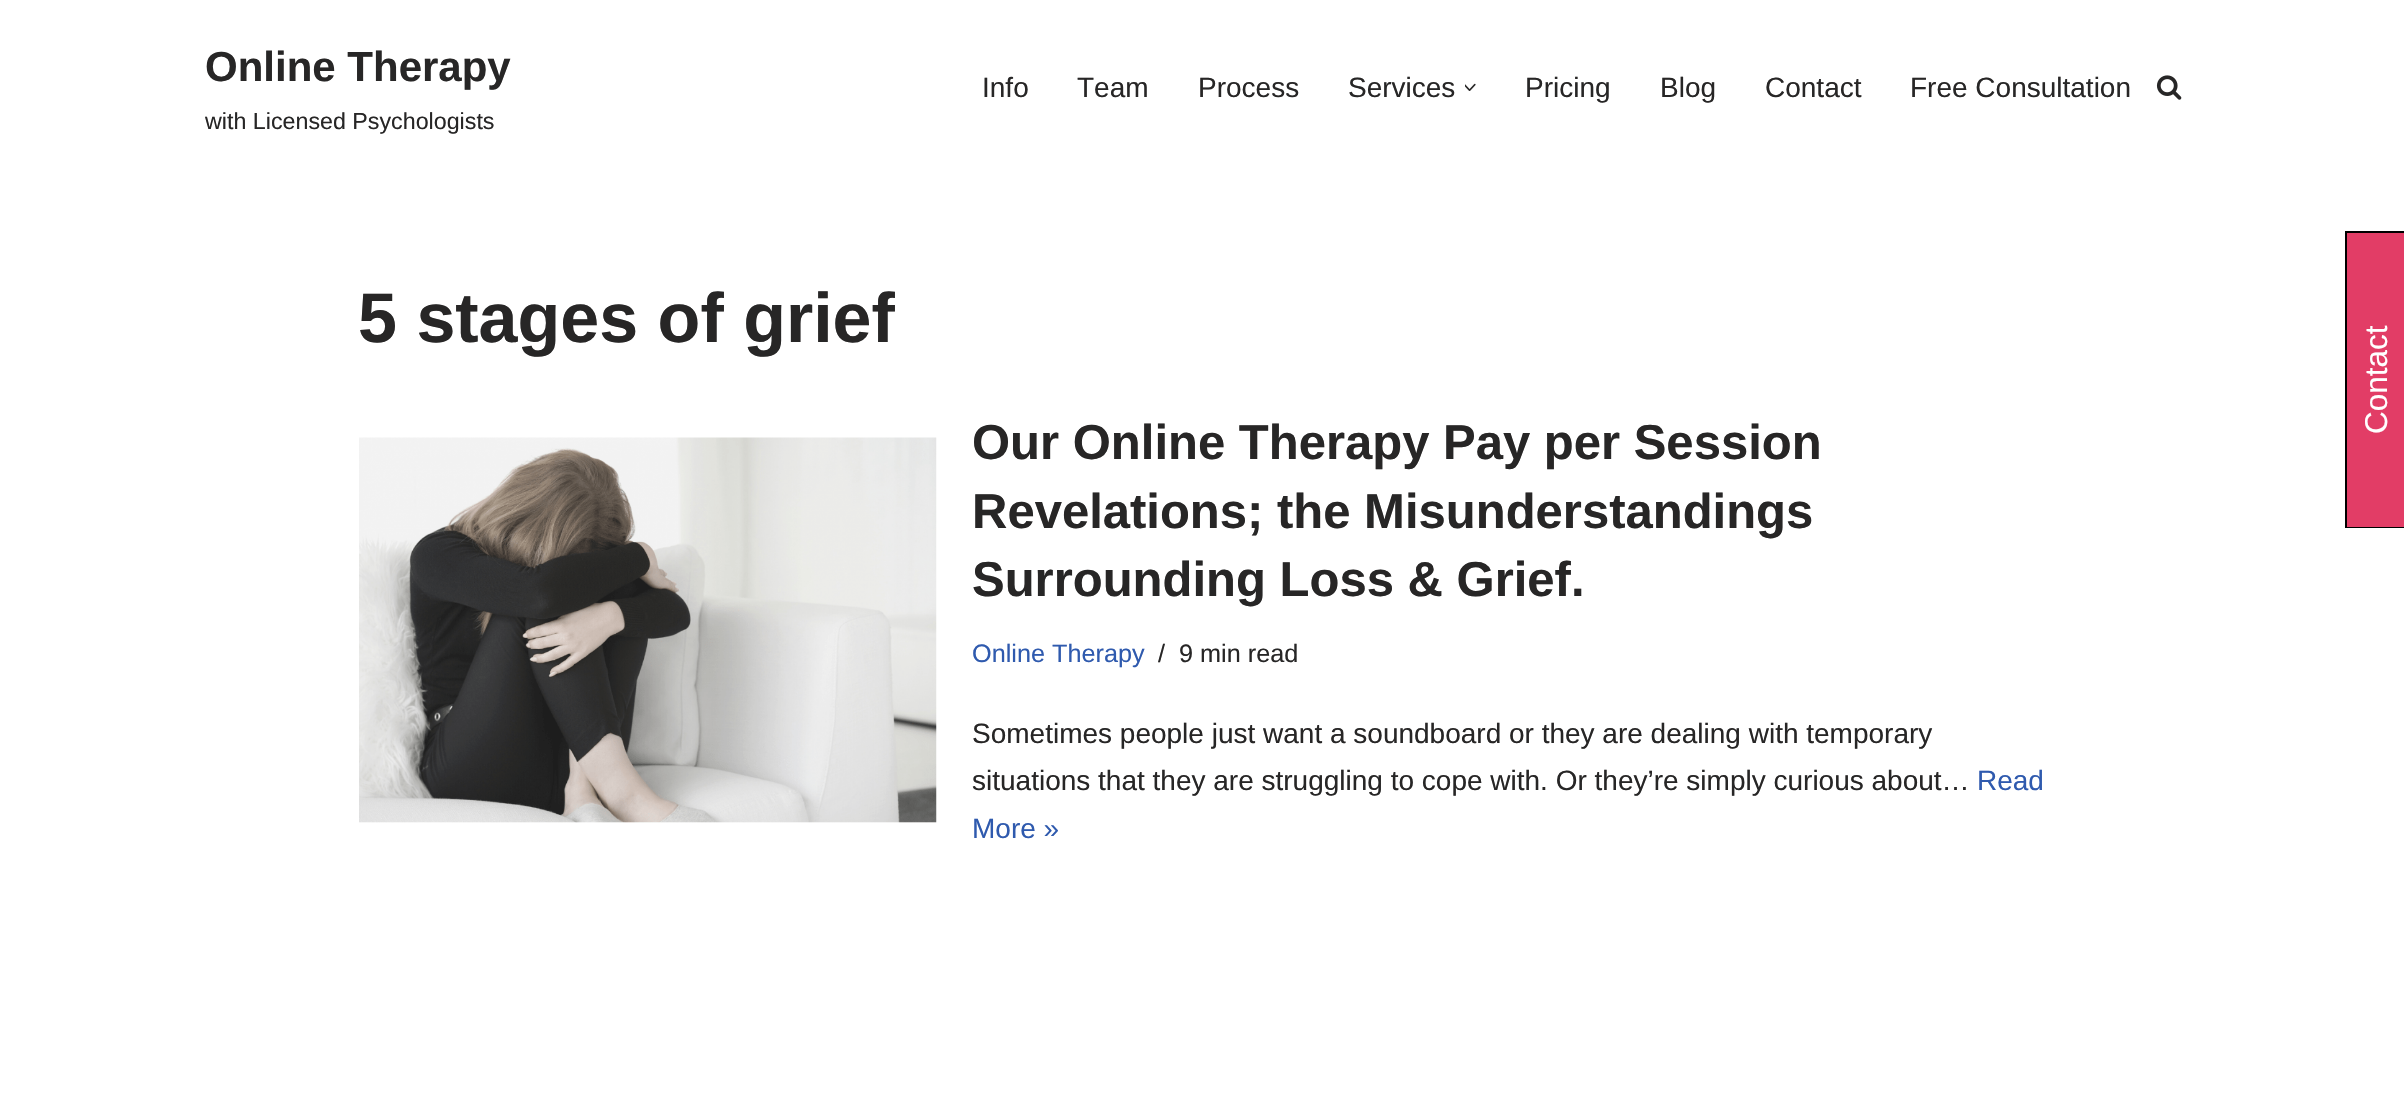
void draw(SkCanvas* canvas) {
	SkPaint fill;
	fill.setAntiAlias(true);
	auto makeFont = [&](const char* family, int weight, float size, bool italic = false) {
		SkFontStyle style(weight, SkFontStyle::kNormal_Width,
			italic ? SkFontStyle::kItalic_Slant : SkFontStyle::kUpright_Slant);
		SkFont result(fontMgr->matchFamilyStyle(family, style), size);
		result.setSubpixel(true);
		return result;
	};
	auto text = [&](const char* s, float x, float y, const SkFont& font) {
		canvas->drawString(s, x, y, font, fill);
	};
	auto box = [&](float l, float t, float r, float b) {
		canvas->drawRect(SkRect::MakeLTRB(l, t, r, b), fill);
	};
	auto picture = [&](const char* path, float l, float t, float r, float b) {
		auto image = SkImages::DeferredFromEncodedData(SkData::MakeFromFileName(path));
		canvas->drawImageRect(image, SkRect::MakeLTRB(l, t, r, b), SkSamplingOptions());
	};
	canvas->clear(0xFFFFFFFF);
	picture("image0.png", 1465, 83, 1476, 91);
	picture("image1.png", 2156, 75, 2182, 100);
	picture("image2.png", 359, 437, 937, 823);
	fill.setColor(0xFFE23D66);
	box(2347, 233, 2404, 527);
	fill.setColor(0xFF000000);
	box(2345, 231, 2347, 528);
	box(2345, 231, 2404, 233);
	box(2345, 527, 2404, 528);
	auto font1 = makeFont("Liberation Sans", 700, 42);
	fill.setColor(0xFF272626);
	text("Online Therapy", 205, 81, font1);
	auto font2 = makeFont("Liberation Sans", 400, 23.25f);
	text("with Licensed Psychologists", 205, 129, font2);
	auto font3 = makeFont("Liberation Sans", 400, 28);
	text("Info", 982, 97, font3);
	text("Team", 1077, 97, font3);
	text("Process", 1198, 97, font3);
	text("Services", 1348, 97, font3);
	text("Pricing", 1525, 97, font3);
	text("Blog", 1660, 97, font3);
	text("Contact", 1765, 97, font3);
	text("Free Consultation", 1910, 97, font3);
	auto font4 = makeFont("Liberation Sans", 700, 70);
	text("5 stages of grief", 358, 342, font4);
	auto font5 = makeFont("Liberation Sans", 700, 49);
	text("Our Online Therapy Pay per Session", 972, 459, font5);
	text("Revelations; the Misunderstandings", 972, 528, font5);
	text("Surrounding Loss & Grief.", 972, 596, font5);
	auto font6 = makeFont("Liberation Sans", 400, 25.25f);
	fill.setColor(0xFF2F5AAE);
	text("Online Therapy", 972, 662, font6);
	fill.setColor(0xFF272626);
	text("/", 1158, 662, font6);
	text("9 min read", 1179, 662, font6);
	text("Sometimes people just want a soundboard or they are dealing with temporary", 972, 743, font3);
	text("situations that they are struggling to cope with. Or they’re simply curious about…", 972, 790, font3);
	fill.setColor(0xFF2F5AAE);
	text("Read", 1977, 790, font3);
	text("More »", 972, 838, font3);
	auto font7 = makeFont("Liberation Sans", 400, 31.5f);
	fill.setColor(0xFFFFFFFF);
	canvas->save();
	canvas->rotate(-90, 2387, 434);
	text("Contact", 2387, 434, font7);
	canvas->restore();
}
